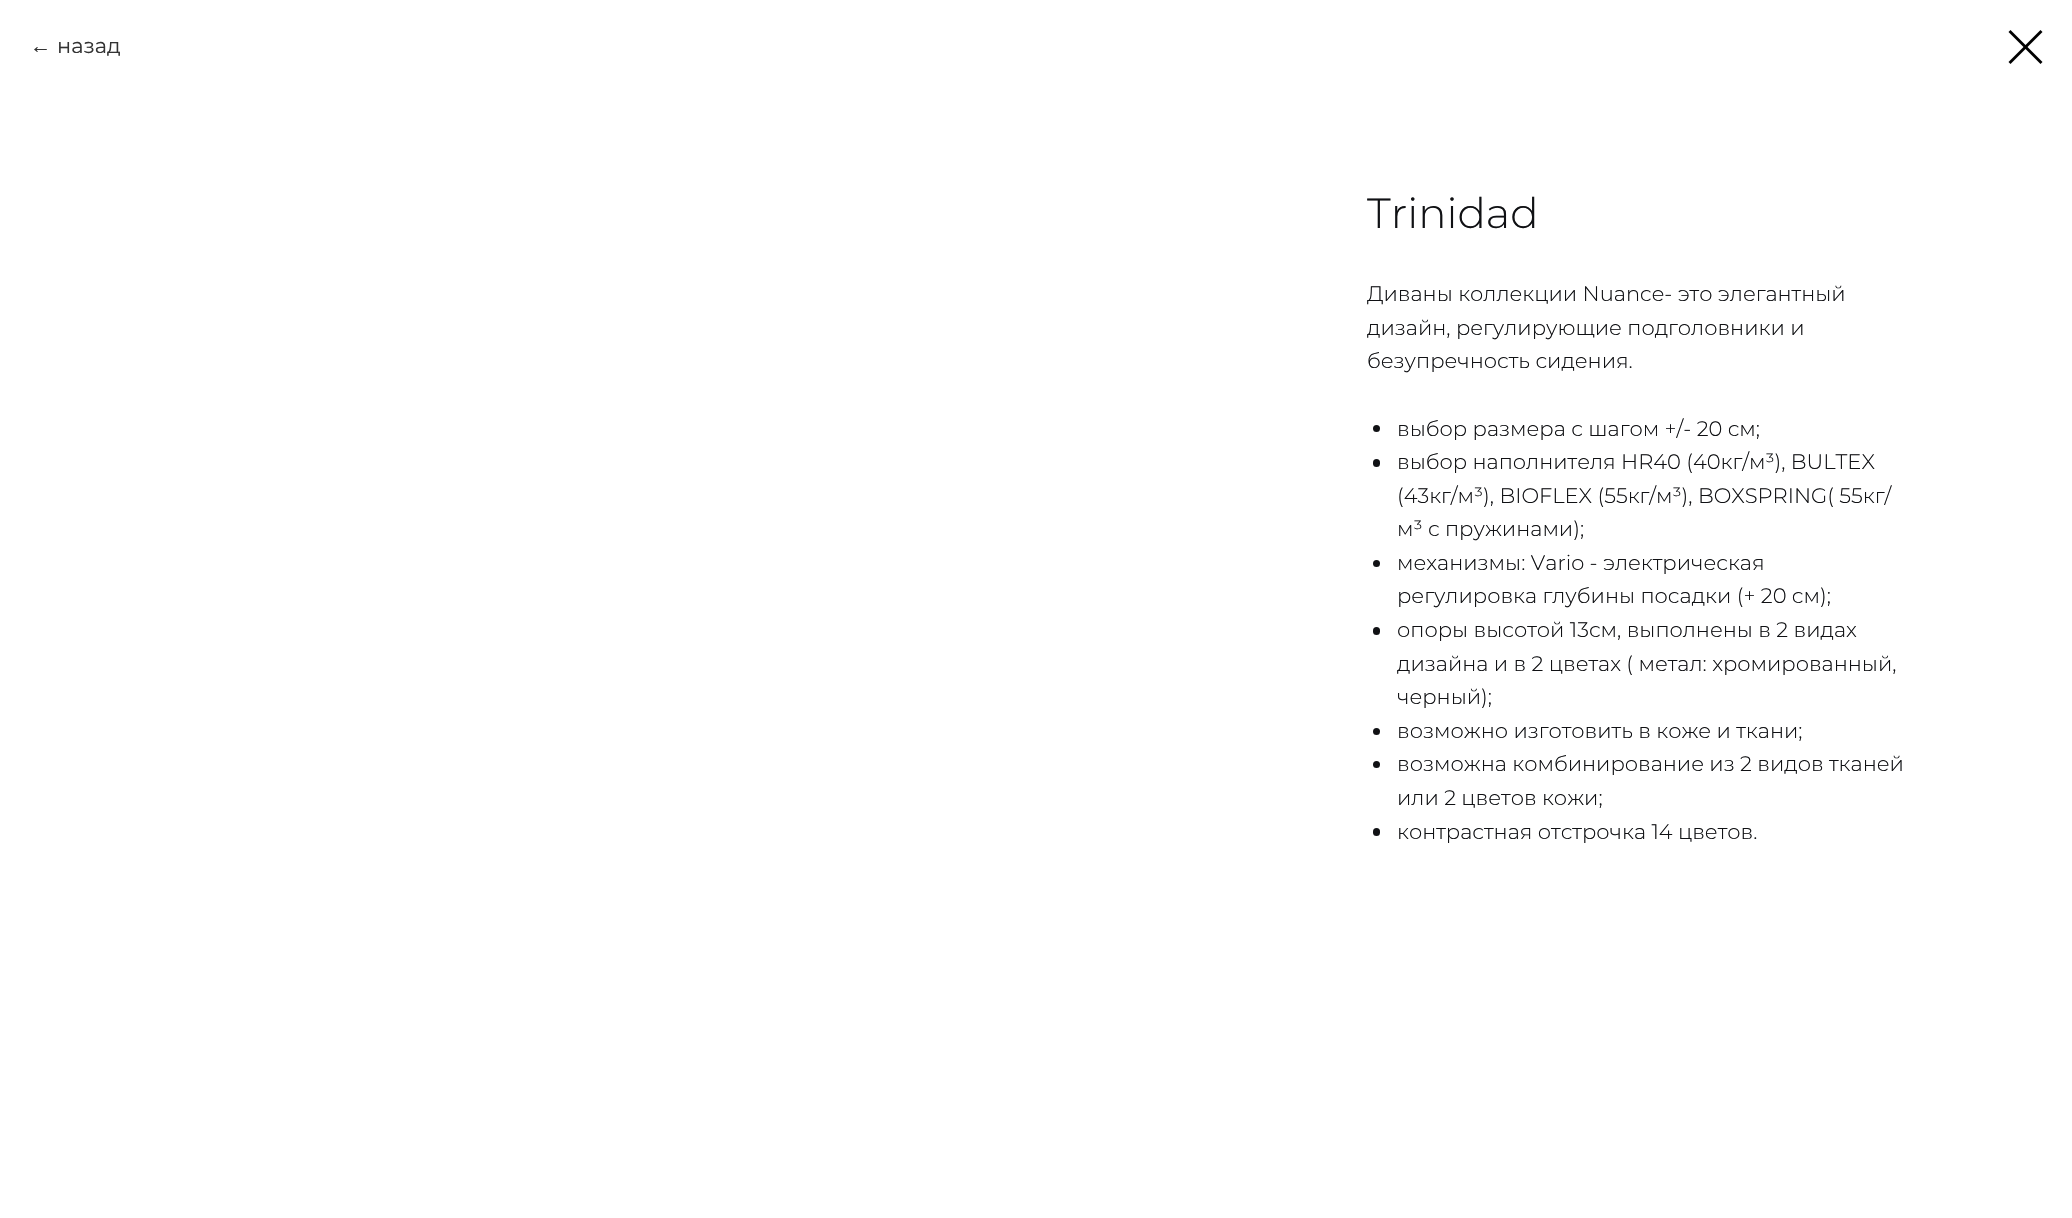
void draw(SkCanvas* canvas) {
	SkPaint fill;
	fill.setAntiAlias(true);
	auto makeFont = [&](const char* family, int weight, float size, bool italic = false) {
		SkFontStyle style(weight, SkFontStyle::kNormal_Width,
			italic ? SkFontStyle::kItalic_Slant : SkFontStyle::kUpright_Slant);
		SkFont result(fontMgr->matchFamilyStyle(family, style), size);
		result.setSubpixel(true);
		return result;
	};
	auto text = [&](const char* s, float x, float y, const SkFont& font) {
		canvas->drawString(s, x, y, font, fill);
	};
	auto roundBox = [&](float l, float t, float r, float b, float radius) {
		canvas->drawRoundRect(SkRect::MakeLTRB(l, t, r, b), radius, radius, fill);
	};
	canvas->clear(0xFFFFFFFF);
	fill.setColor(0xFF000000);
	canvas->drawPath(SkPathBuilder(SkPathFillType::kEvenOdd).moveTo(2008.5f, 32).lineTo(2010.5f, 30).lineTo(2042.5f, 62).lineTo(2040.5f, 64).close().detach(), fill);
	canvas->drawPath(SkPathBuilder(SkPathFillType::kEvenOdd).moveTo(2040.5f, 30).lineTo(2042.5f, 32).lineTo(2010.5f, 64).lineTo(2008.5f, 62).close().detach(), fill);
	fill.setColor(0xFF101114);
	canvas->drawCircle(1376.5f, 428.5f, 3.5f, fill);
	roundBox(1373, 459, 1380, 467, 3.5f);
	canvas->drawCircle(1376.5f, 563.5f, 3.5f, fill);
	roundBox(1373, 627, 1380, 635, 3.5f);
	canvas->drawCircle(1376.5f, 731.5f, 3.5f, fill);
	canvas->drawCircle(1376.5f, 764.5f, 3.5f, fill);
	roundBox(1373, 828, 1380, 836, 3.5f);
	auto font1 = makeFont("Liberation Sans", 400, 21);
	fill.setColor(0xFF333333);
	text("←", 30, 53, font1);
	auto font2 = makeFont("Montserrat", 400, 21);
	text("назад", 57, 53, font2);
	auto font3 = makeFont("Montserrat", 300, 42);
	fill.setColor(0xFF101114);
	text("Trinidad", 1367, 228, font3);
	auto font4 = makeFont("Montserrat", 300, 21);
	text("Диваны коллекции Nuance- это элегантный", 1367, 301, font4);
	text("дизайн, регулирующие подголовники и", 1367, 335, font4);
	text("безупречность сидения.", 1367, 368, font4);
	text("выбор размера с шагом +/- 20 см;", 1397, 436, font4);
	text("выбор наполнителя HR40 (40кг/м³), BULTEX", 1397, 469, font4);
	text("(43кг/м³), BIOFLEX (55кг/м³), BOXSPRING( 55кг/", 1397, 503, font4);
	text("м³ с пружинами);", 1397, 536, font4);
	text("механизмы: Vario - электрическая", 1397, 570, font4);
	text("регулировка глубины посадки (+ 20 см);", 1397, 603, font4);
	text("опоры высотой 13см, выполнены в 2 видах", 1397, 637, font4);
	text("дизайна и в 2 цветах ( метал: хромированный,", 1397, 671, font4);
	text("черный);", 1397, 704, font4);
	text("возможно изготовить в коже и ткани;", 1397, 738, font4);
	text("возможна комбинирование из 2 видов тканей", 1397, 771, font4);
	text("или 2 цветов кожи;", 1397, 805, font4);
	text("контрастная отстрочка 14 цветов.", 1397, 839, font4);
}
